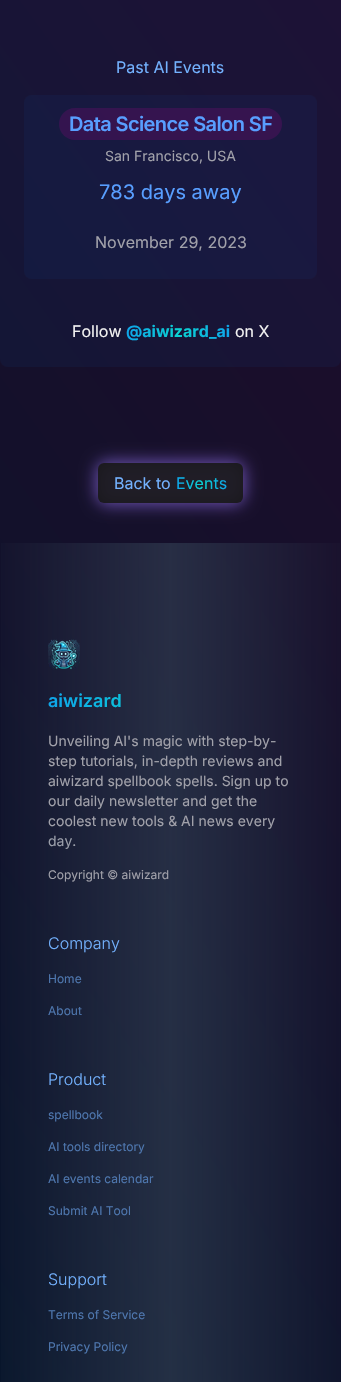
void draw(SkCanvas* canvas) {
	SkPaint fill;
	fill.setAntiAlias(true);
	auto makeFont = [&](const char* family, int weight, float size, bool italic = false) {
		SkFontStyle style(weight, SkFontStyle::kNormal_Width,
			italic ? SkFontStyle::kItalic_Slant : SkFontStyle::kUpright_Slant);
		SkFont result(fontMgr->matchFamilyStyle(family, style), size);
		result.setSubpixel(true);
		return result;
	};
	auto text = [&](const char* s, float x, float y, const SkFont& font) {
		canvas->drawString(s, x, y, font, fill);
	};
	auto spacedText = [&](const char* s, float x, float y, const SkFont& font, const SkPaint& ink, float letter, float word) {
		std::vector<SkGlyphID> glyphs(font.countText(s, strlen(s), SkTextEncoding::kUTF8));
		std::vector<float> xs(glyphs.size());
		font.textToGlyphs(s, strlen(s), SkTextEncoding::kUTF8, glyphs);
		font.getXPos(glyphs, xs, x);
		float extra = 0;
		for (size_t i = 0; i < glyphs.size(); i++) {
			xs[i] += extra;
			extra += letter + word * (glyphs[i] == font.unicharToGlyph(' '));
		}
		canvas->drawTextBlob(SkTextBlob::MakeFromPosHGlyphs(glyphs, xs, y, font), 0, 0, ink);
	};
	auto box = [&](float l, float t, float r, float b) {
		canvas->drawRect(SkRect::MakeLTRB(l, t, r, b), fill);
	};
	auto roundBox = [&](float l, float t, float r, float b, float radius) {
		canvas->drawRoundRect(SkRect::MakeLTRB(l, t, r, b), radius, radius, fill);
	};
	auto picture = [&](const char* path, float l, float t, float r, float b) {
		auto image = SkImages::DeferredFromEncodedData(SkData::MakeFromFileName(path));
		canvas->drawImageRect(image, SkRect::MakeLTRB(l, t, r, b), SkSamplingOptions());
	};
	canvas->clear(0xFFFFFFFF);
	{
		const SkColor colors[] = {0xFF08152B, 0xFF1F0C2B};
		const float stops[] = {0, 1};
		const SkPoint ends[] = {{-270, 1011}, {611, 371}};
		fill.setShader(SkGradientShader::MakeLinear(ends, colors, stops, 2, SkTileMode::kClamp));
		fill.setAlpha(255);
	}
	box(0, 0, 341, 1382);
	fill.setShader(nullptr);
	fill.setColor(0x1A084391);
	roundBox(0, -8, 341, 367, 8);
	roundBox(24, 95, 317, 279, 8);
	fill.setColor(0x33A3008D);
	roundBox(59, 108, 282, 140, 16);
	fill.setColor(0xB38B69E1);
	fill.setMaskFilter(SkMaskFilter::MakeBlur(kNormal_SkBlurStyle, 8));
	canvas->drawRoundRect(SkRect::MakeLTRB(96, 461, 245, 505), 12, 12, fill);
	fill.setMaskFilter(nullptr);
	fill.setColor(0xE6171717);
	roundBox(98, 463, 243, 503, 6);
	{
		const SkColor colors[] = {0x0D334155, 0x99334155, 0x0D334155};
		const float stops[] = {0, 0.5f, 1};
		const SkPoint ends[] = {{0, 1074}, {341, 1074}};
		fill.setShader(SkGradientShader::MakeLinear(ends, colors, stops, 3, SkTileMode::kClamp));
		fill.setAlpha(255);
	}
	box(1, 543, 340, 1382);
	picture("image0.png", 48, 639, 80, 670);
	auto font1 = makeFont("Inter", 400, 16);
	fill.setShader(nullptr);
	fill.setColor(0xFF73B2FF);
	text("Past AI Events", 116, 73, font1);
	auto font2 = makeFont("Inter", 600, 20);
	fill.setColor(0xFF589EFF);
	spacedText("Data Science Salon SF", 69, 131, font2, fill, -0.6f, 0);
	auto font3 = makeFont("Inter", 400, 14);
	fill.setColor(0xFFA1A1AA);
	text("San Francisco, USA", 105, 161, font3);
	auto font4 = makeFont("Inter", 400, 20);
	fill.setColor(0xFF589EFF);
	text("783 days away", 99, 199, font4);
	fill.setColor(0xFFA1A1AA);
	text("November 29, 2023", 95, 248, font1);
	fill.setColor(0xFFF2F2F2);
	text("Follow", 72, 337, font1);
	auto font5 = makeFont("Inter", 700, 16);
	{
		const SkColor colors[] = {0xFF0EA5EA, 0xFF0BD1D1, 0xFF0EA5EA};
		const float stops[] = {0, 0.51f, 1};
		const SkPoint ends[] = {{126, 331}, {230, 331}};
		fill.setShader(SkGradientShader::MakeLinear(ends, colors, stops, 3, SkTileMode::kClamp));
		fill.setAlpha(255);
	}
	text("@aiwizard_ai", 126, 337, font5);
	fill.setShader(nullptr);
	fill.setColor(0xFFF2F2F2);
	text("on X", 235, 337, font1);
	fill.setColor(0xFF73B2FF);
	text("Back to", 114, 489, font1);
	{
		const SkColor colors[] = {0xFF0EA5EA, 0xFF0BD1D1, 0xFF0EA5EA};
		const float stops[] = {0, 0.51f, 1};
		const SkPoint ends[] = {{176, 483}, {227, 483}};
		fill.setShader(SkGradientShader::MakeLinear(ends, colors, stops, 3, SkTileMode::kClamp));
		fill.setAlpha(255);
	}
	text("Events", 176, 489, font1);
	auto font6 = makeFont("Inter", 600, 18);
	{
		const SkColor colors[] = {0xFF0EA5EA, 0xFF0BD1D1, 0xFF0EA5EA};
		const float stops[] = {0, 0.51f, 1};
		const SkPoint ends[] = {{48, 701}, {293, 701}};
		fill.setShader(SkGradientShader::MakeLinear(ends, colors, stops, 3, SkTileMode::kClamp));
		fill.setAlpha(255);
	}
	text("aiwizard", 48, 707, font6);
	fill.setShader(nullptr);
	fill.setColor(0xFFA1A1AA);
	text("Unveiling AI's magic with step-by-", 48, 746, font3);
	text("step tutorials, in-depth reviews and", 48, 766, font3);
	text("aiwizard spellbook spells. Sign up to", 48, 786, font3);
	text("our daily newsletter and get the", 48, 806, font3);
	text("coolest new tools & AI news every", 48, 826, font3);
	fill.setColor(0xFF9A9EA9);
	text("day.", 48, 846, font3);
	auto font7 = makeFont("Inter", 400, 12);
	fill.setColor(0xFFA1A1AA);
	text("Copyright © aiwizard", 48, 879, font7);
	auto font8 = makeFont("Inter", 300, 16);
	fill.setColor(0xFF73B2FF);
	text("Company", 48, 949, font8);
	fill.setColor(0xFF4E77AF);
	text("Home", 48, 983, font7);
	text("About", 48, 1015, font7);
	fill.setColor(0xFF73B2FF);
	text("Product", 48, 1085, font8);
	fill.setColor(0xFF4E77AF);
	text("spellbook", 48, 1119, font7);
	text("AI tools directory", 48, 1151, font7);
	text("AI events calendar", 48, 1183, font7);
	text("Submit AI Tool", 48, 1215, font7);
	fill.setColor(0xFF73B2FF);
	text("Support", 48, 1285, font8);
	fill.setColor(0xFF4E77AF);
	text("Terms of Service", 48, 1319, font7);
	text("Privacy Policy", 48, 1351, font7);
}
